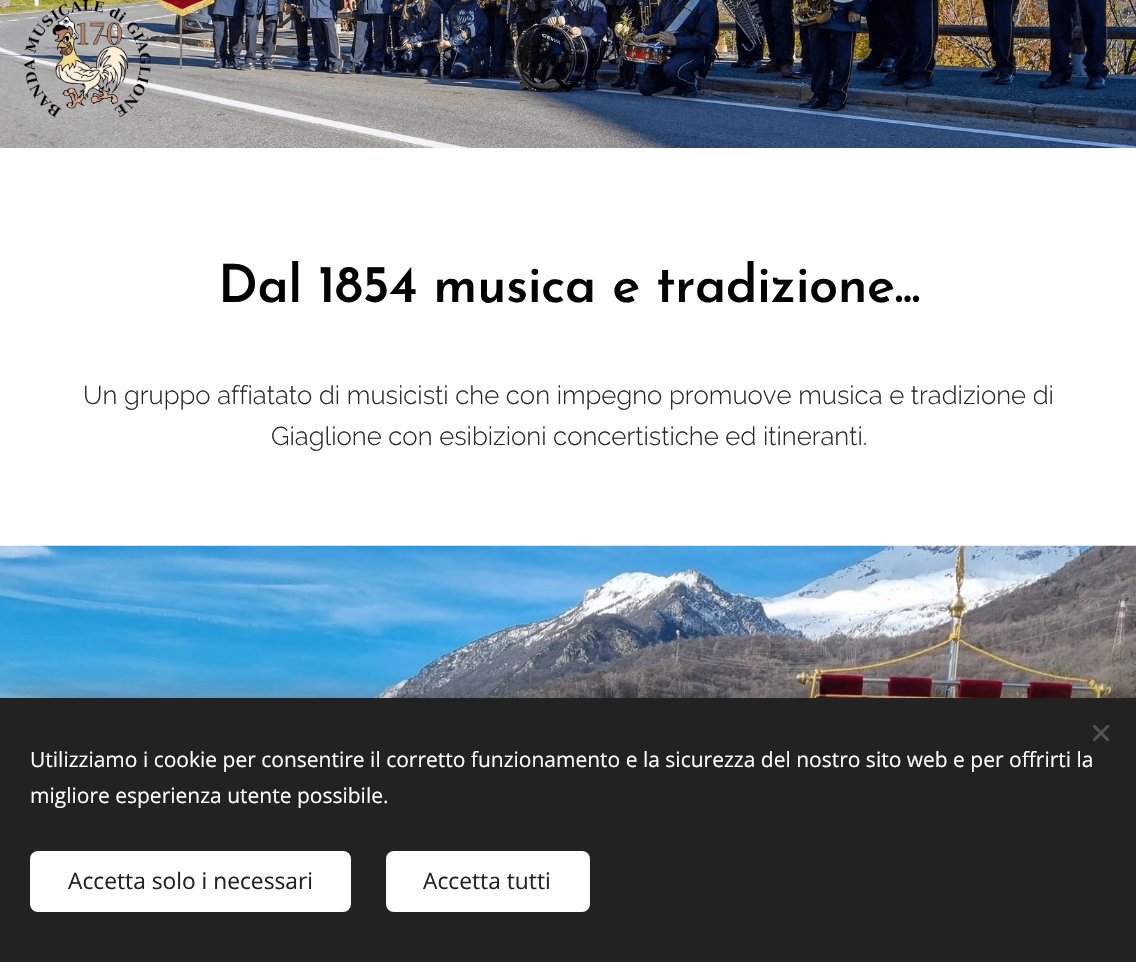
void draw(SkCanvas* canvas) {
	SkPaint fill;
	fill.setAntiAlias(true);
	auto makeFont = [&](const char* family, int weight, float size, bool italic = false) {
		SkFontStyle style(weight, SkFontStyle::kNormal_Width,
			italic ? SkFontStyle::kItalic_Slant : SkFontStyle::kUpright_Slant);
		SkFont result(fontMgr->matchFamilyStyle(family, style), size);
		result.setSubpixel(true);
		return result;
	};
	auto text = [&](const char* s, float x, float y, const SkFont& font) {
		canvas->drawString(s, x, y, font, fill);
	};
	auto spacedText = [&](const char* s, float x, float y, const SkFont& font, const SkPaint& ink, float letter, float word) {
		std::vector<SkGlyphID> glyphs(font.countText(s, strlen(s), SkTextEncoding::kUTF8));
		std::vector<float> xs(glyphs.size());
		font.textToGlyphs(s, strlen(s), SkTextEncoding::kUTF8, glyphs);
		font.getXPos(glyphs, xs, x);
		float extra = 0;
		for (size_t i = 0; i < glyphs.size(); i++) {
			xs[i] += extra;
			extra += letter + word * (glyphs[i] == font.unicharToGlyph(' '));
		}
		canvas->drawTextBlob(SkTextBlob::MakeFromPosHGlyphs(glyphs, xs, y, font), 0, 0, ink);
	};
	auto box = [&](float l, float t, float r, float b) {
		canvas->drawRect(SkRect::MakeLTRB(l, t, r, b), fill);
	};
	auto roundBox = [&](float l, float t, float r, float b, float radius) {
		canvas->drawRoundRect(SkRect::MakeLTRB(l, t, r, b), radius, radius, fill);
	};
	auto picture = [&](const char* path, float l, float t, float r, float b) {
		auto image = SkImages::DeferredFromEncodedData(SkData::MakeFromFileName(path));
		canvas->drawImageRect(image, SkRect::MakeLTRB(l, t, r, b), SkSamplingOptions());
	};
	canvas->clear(0xFFFFFFFF);
	picture("image0.png", 0, 0, 1136, 148);
	picture("image1.png", 553, 74, 583, 93);
	picture("image2.png", 0, 545, 1136, 698);
	fill.setColor(0x54000000);
	fill.setMaskFilter(SkMaskFilter::MakeBlur(kNormal_SkBlurStyle, 19));
	canvas->drawRect(SkRect::MakeLTRB(0, 698, 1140, 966), fill);
	fill.setMaskFilter(nullptr);
	fill.setColor(0xFF222222);
	box(0, 698, 1136, 962);
	fill.setColor(0xFF555555);
	canvas->drawPath(SkPathBuilder().moveTo(1092.5f, 739.5f).lineTo(1107.5f, 724.5f).lineTo(1109.5f, 726.5f).lineTo(1094.5f, 741.5f).close().detach(), fill);
	canvas->drawPath(SkPathBuilder().moveTo(1094.5f, 724.5f).lineTo(1109.5f, 739.5f).lineTo(1107.5f, 741.5f).lineTo(1092.5f, 726.5f).close().detach(), fill);
	fill.setColor(0xFFFFFFFF);
	roundBox(30, 851, 351, 912, 8);
	roundBox(386, 851, 590, 912, 8);
	auto font1 = makeFont("Josefin Sans", 600, 52.5f);
	fill.setColor(0xFF030303);
	spacedText("Dal 1854 musica e tradizione...", 218, 302, font1, fill, -0.5f, 0);
	auto font2 = makeFont("Raleway", 300, 25.8f);
	fill.setColor(0xFF282828);
	text("Un gruppo affiatato di musicisti che con impegno promuove musica e tradizione di", 83, 404, font2);
	text("Giaglione con esibizioni concertistiche ed itineranti.", 271, 445, font2);
	auto font3 = makeFont("Open Sans", 400, 21);
	fill.setColor(0xFFFFFFFF);
	text("Utilizziamo i cookie per consentire il corretto funzionamento e la sicurezza del nostro sito web e per offrirti la", 30, 767, font3);
	text("migliore esperienza utente possibile.", 30, 803, font3);
	auto font4 = makeFont("Open Sans", 400, 22.75f);
	fill.setColor(0xFF222222);
	text("Accetta solo i necessari", 68, 889, font4);
	text("Accetta tutti", 423, 889, font4);
}
